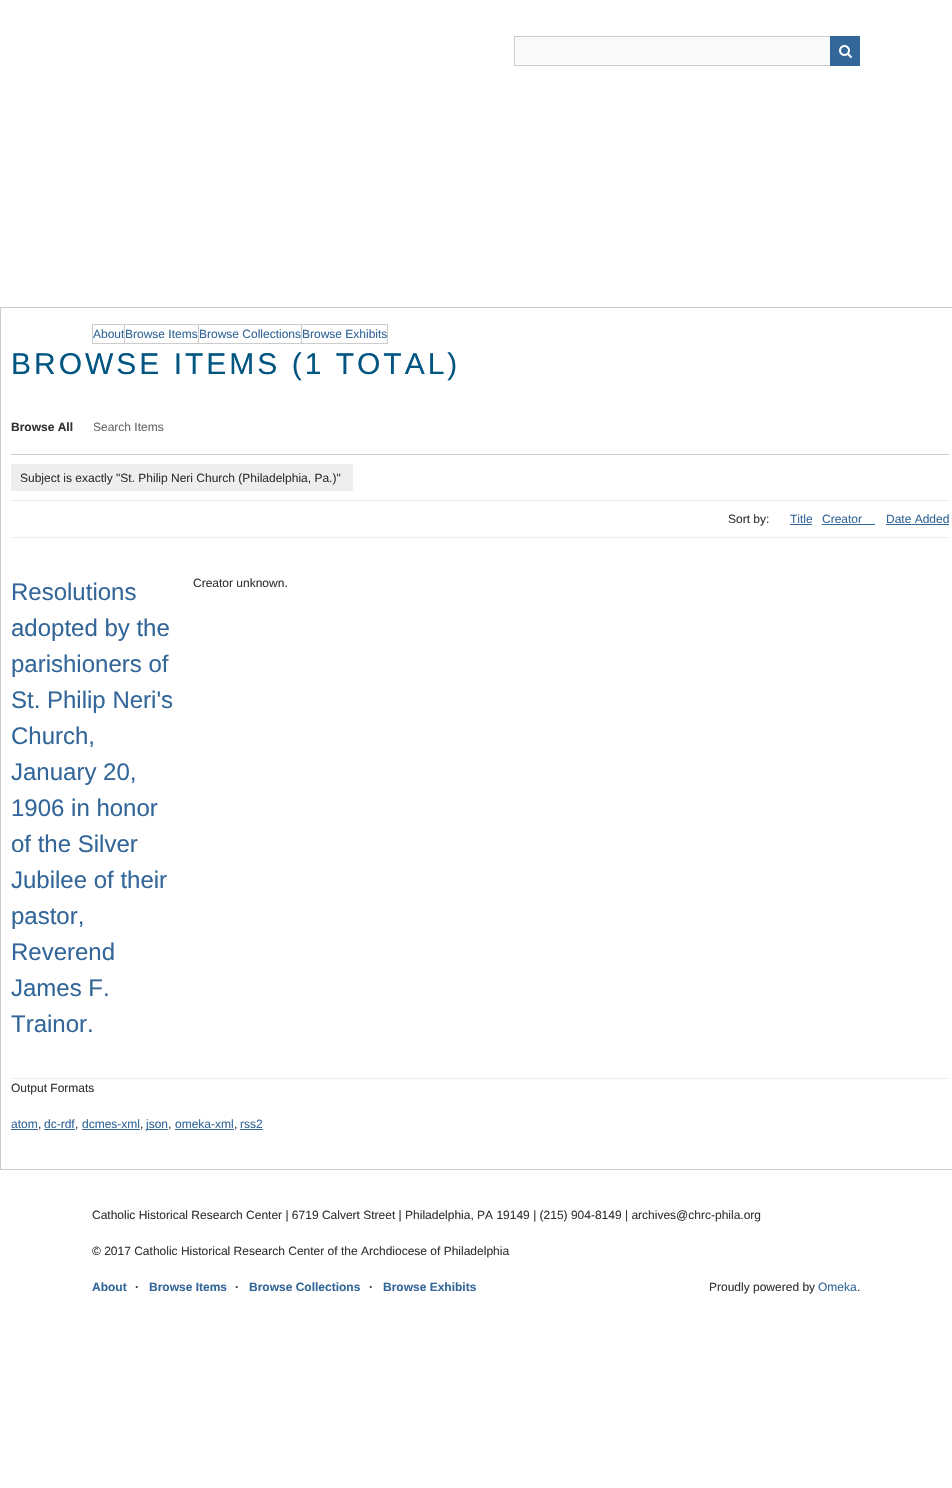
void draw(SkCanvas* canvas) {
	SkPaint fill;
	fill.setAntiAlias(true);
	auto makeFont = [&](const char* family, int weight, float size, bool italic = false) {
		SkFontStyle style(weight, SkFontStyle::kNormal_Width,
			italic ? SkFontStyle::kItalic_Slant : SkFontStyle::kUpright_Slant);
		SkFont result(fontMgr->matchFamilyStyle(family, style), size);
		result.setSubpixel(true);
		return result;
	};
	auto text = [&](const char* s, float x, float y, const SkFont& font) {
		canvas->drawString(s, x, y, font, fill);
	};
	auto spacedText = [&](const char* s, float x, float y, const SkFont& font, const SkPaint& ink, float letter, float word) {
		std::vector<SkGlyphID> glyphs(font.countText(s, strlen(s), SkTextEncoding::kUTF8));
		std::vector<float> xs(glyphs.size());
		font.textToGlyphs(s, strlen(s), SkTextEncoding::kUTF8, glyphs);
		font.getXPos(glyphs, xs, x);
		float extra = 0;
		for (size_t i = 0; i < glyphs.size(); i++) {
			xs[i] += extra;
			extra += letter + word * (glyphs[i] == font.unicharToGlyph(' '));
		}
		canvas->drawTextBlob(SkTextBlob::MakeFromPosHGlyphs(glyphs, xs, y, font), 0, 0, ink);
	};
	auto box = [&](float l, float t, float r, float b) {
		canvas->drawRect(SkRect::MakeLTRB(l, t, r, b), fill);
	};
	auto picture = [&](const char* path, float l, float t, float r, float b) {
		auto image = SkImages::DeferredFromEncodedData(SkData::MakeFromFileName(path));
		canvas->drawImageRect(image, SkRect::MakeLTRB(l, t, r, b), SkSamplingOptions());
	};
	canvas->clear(0xFFFFFFFF);
	fill.setColor(0xFFFAFAFA);
	box(515, 37, 830, 65);
	fill.setStyle(SkPaint::kStroke_Style);
	fill.setStrokeWidth(1);
	fill.setColor(0xFFCCCCCC);
	canvas->drawRect(SkRect::MakeLTRB(514.5f, 36.5f, 859.5f, 65.5f), fill);
	fill.setStyle(SkPaint::kFill_Style);
	fill.setColor(0xFF336699);
	box(830, 36, 860, 66);
	picture("image0.png", 839, 45, 852, 58);
	fill.setStyle(SkPaint::kStroke_Style);
	fill.setColor(0xFFCCCCCC);
	canvas->drawRect(SkRect::MakeLTRB(0.5f, 307.5f, 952.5f, 1169.5f), fill);
	canvas->drawRect(SkRect::MakeLTRB(92.5f, 324.5f, 124.5f, 343.5f), fill);
	fill.setStyle(SkPaint::kFill_Style);
	box(11, 454, 949, 455);
	fill.setColor(0xFFEEEEEE);
	box(11, 500, 949, 501);
	box(11, 464, 353, 491);
	fill.setColor(0xFF336699);
	box(790, 524, 812, 525);
	box(822, 524, 875, 525);
	box(886, 524, 949, 525);
	fill.setColor(0xFFEEEEEE);
	box(11, 537, 949, 538);
	box(11, 1078, 949, 1079);
	fill.setColor(0xFF336699);
	box(11, 1129, 38, 1130);
	box(44, 1129, 75, 1130);
	box(82, 1129, 140, 1130);
	box(146, 1129, 168, 1130);
	box(175, 1129, 234, 1130);
	box(240, 1129, 263, 1130);
	auto font1 = makeFont("Liberation Sans", 400, 12);
	text("About", 93, 338, font1);
	fill.setStyle(SkPaint::kStroke_Style);
	fill.setColor(0xFFCCCCCC);
	canvas->drawRect(SkRect::MakeLTRB(124.5f, 324.5f, 198.5f, 343.5f), fill);
	fill.setStyle(SkPaint::kFill_Style);
	fill.setColor(0xFF336699);
	text("Browse Items", 125, 338, font1);
	fill.setStyle(SkPaint::kStroke_Style);
	fill.setColor(0xFFCCCCCC);
	canvas->drawRect(SkRect::MakeLTRB(198.5f, 324.5f, 301.5f, 343.5f), fill);
	fill.setStyle(SkPaint::kFill_Style);
	fill.setColor(0xFF336699);
	text("Browse Collections", 199, 338, font1);
	fill.setStyle(SkPaint::kStroke_Style);
	fill.setColor(0xFFCCCCCC);
	canvas->drawRect(SkRect::MakeLTRB(301.5f, 324.5f, 387.5f, 343.5f), fill);
	fill.setStyle(SkPaint::kFill_Style);
	fill.setColor(0xFF336699);
	text("Browse Exhibits", 302, 338, font1);
	auto font2 = makeFont("Liberation Sans", 400, 30);
	fill.setColor(0xFF015581);
	spacedText("BROWSE ITEMS (1 TOTAL)", 11, 374, font2, fill, 3, 0);
	auto font3 = makeFont("Liberation Sans", 700, 12);
	fill.setColor(0xFF333333);
	text("Browse All", 11, 431, font3);
	fill.setColor(0xFF666666);
	text("Search Items", 93, 431, font1);
	fill.setColor(0xFF333333);
	text("Subject is exactly \"St. Philip Neri Church (Philadelphia, Pa.)\"", 20, 482, font1);
	text("Sort by:", 728, 523, font1);
	fill.setColor(0xFF336699);
	text("Title", 790, 523, font1);
	text("Creator", 822, 523, font1);
	auto font4 = makeFont("FontAwesome", 400, 12);
	text("", 869, 523, font4);
	text("Date Added", 886, 523, font1);
	auto font5 = makeFont("Liberation Sans", 400, 24);
	text("Resolutions", 11, 600, font5);
	text("adopted by the", 11, 636, font5);
	text("parishioners of", 11, 672, font5);
	text("St. Philip Neri's", 11, 708, font5);
	text("Church,", 11, 744, font5);
	text("January 20,", 11, 780, font5);
	text("1906 in honor", 11, 816, font5);
	text("of the Silver", 11, 852, font5);
	text("Jubilee of their", 11, 888, font5);
	text("pastor,", 11, 924, font5);
	text("Reverend", 11, 960, font5);
	text("James F.", 11, 996, font5);
	text("Trainor.", 11, 1032, font5);
	fill.setColor(0xFF333333);
	text("Creator unknown.", 193, 587, font1);
	text("Output Formats", 11, 1092, font1);
	fill.setColor(0xFF336699);
	text("atom", 11, 1128, font1);
	fill.setColor(0xFF333333);
	text(",", 38, 1128, font1);
	fill.setColor(0xFF336699);
	text("dc-rdf", 44, 1128, font1);
	fill.setColor(0xFF333333);
	text(",", 75, 1128, font1);
	fill.setColor(0xFF336699);
	text("dcmes-xml", 82, 1128, font1);
	fill.setColor(0xFF333333);
	text(",", 140, 1128, font1);
	fill.setColor(0xFF336699);
	text("json", 146, 1128, font1);
	fill.setColor(0xFF333333);
	text(",", 168, 1128, font1);
	fill.setColor(0xFF336699);
	text("omeka-xml", 175, 1128, font1);
	fill.setColor(0xFF333333);
	text(",", 234, 1128, font1);
	fill.setColor(0xFF336699);
	text("rss2", 240, 1128, font1);
	fill.setColor(0xFF333333);
	text("Catholic Historical Research Center | 6719 Calvert Street | Philadelphia, PA 19149 | (215) 904-8149 | archives@chrc-phila.org", 92, 1219, font1);
	text("© 2017 Catholic Historical Research Center of the Archdiocese of Philadelphia", 92, 1255, font1);
	fill.setColor(0xFF336699);
	text("About", 92, 1291, font3);
	fill.setColor(0xFF333333);
	text("·", 135, 1291, font3);
	fill.setColor(0xFF336699);
	text("Browse Items", 149, 1291, font3);
	fill.setColor(0xFF333333);
	text("·", 235, 1291, font3);
	fill.setColor(0xFF336699);
	text("Browse Collections", 249, 1291, font3);
	fill.setColor(0xFF333333);
	text("·", 369, 1291, font3);
	fill.setColor(0xFF336699);
	text("Browse Exhibits", 383, 1291, font3);
	fill.setColor(0xFF333333);
	text("Proudly powered by", 709, 1291, font1);
	fill.setColor(0xFF336699);
	text("Omeka", 818, 1291, font1);
	fill.setColor(0xFF333333);
	text(".", 857, 1291, font1);
}
